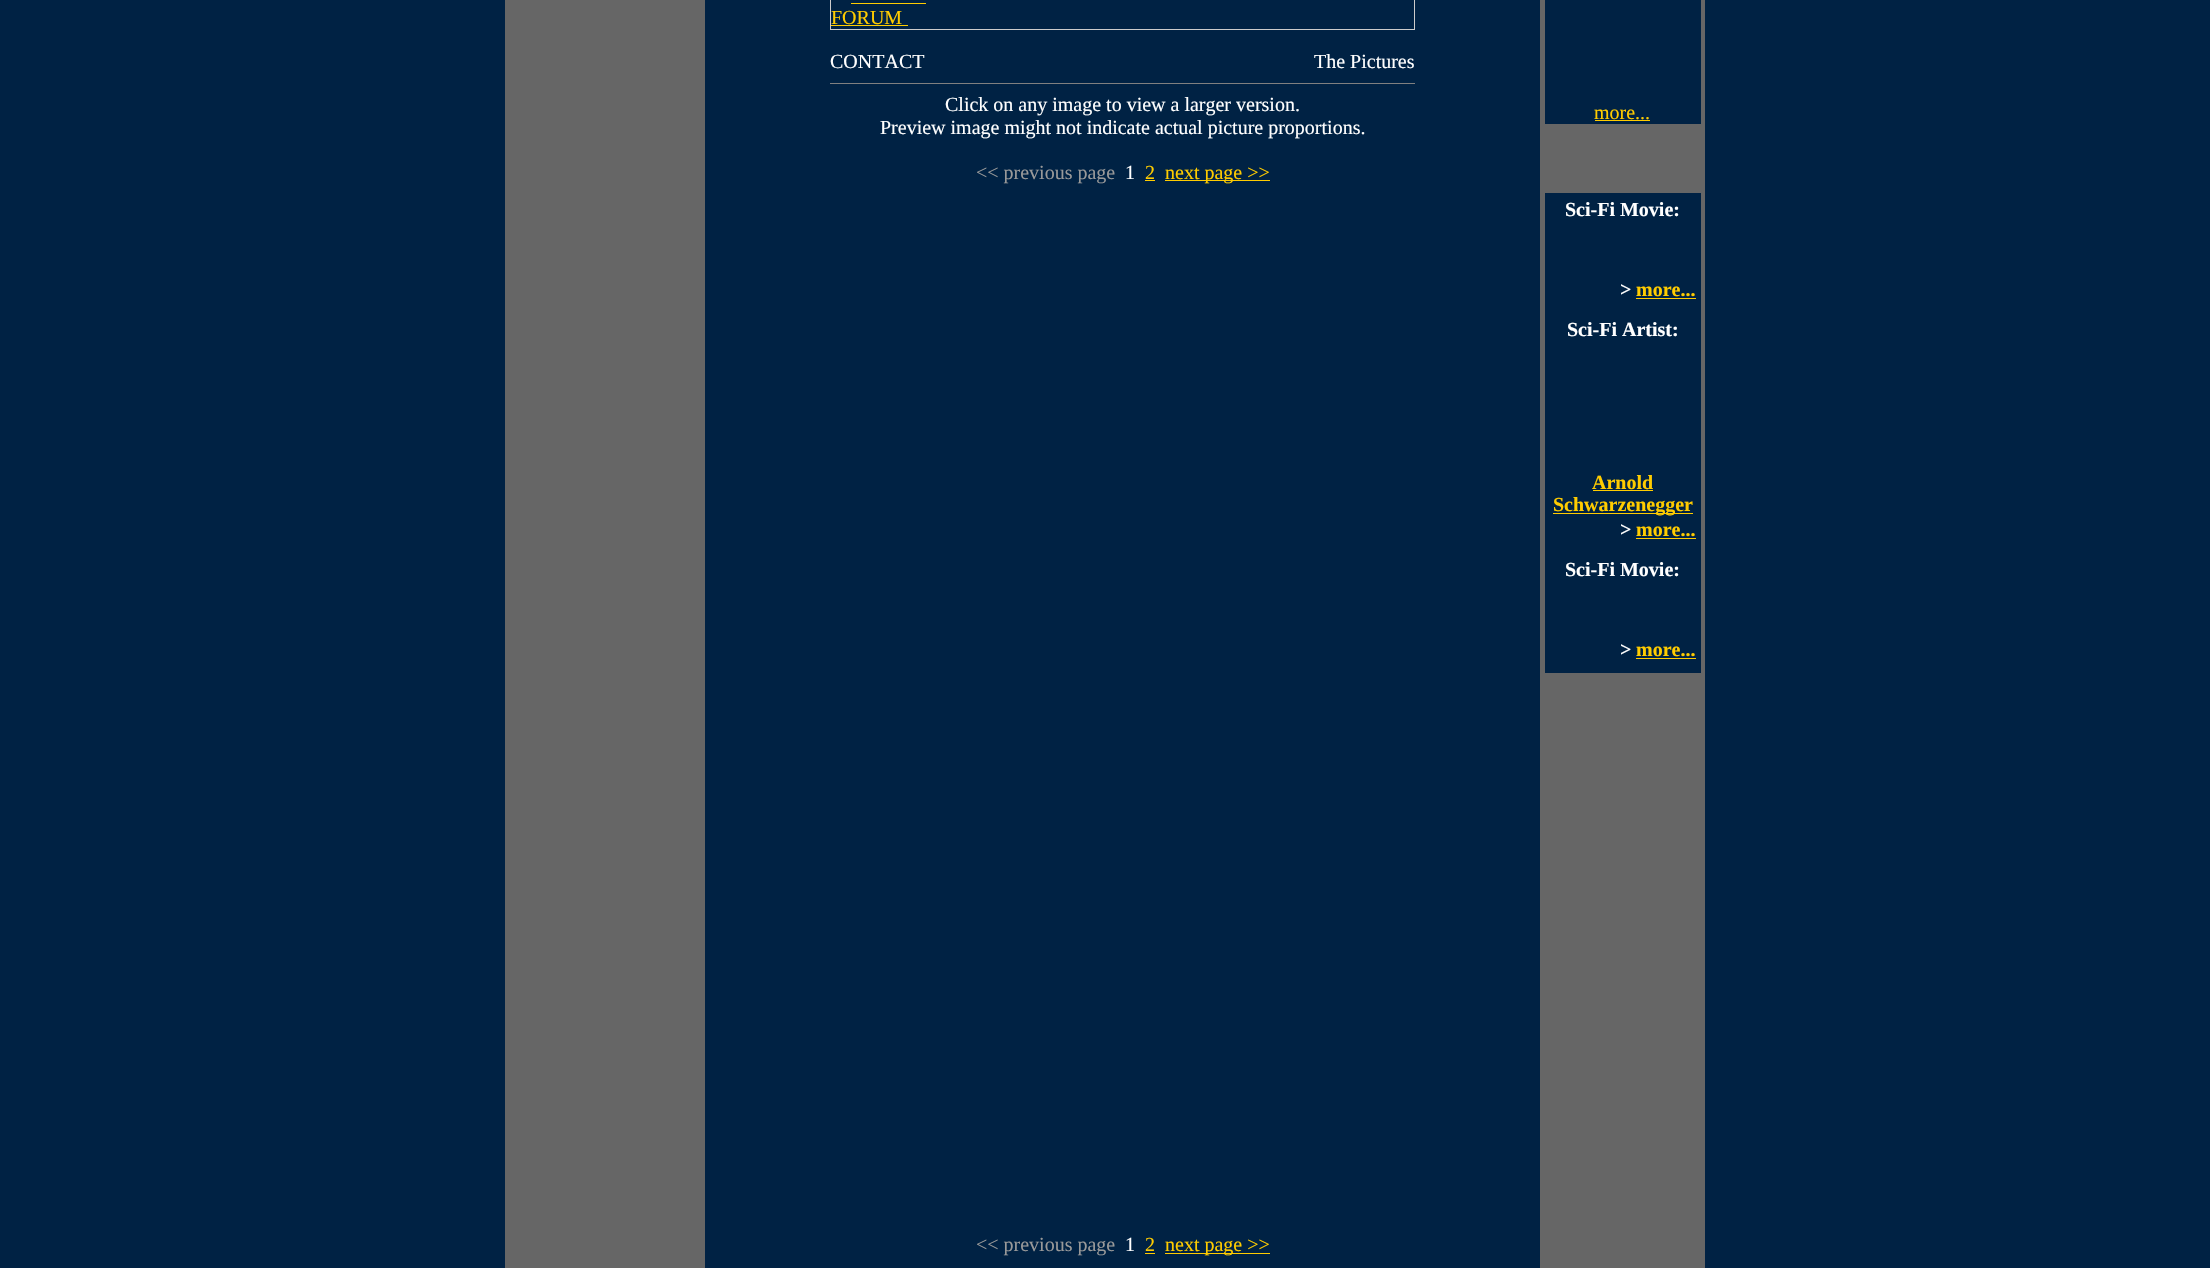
void draw(SkCanvas* canvas) {
	SkPaint fill;
	fill.setAntiAlias(true);
	auto makeFont = [&](const char* family, int weight, float size, bool italic = false) {
		SkFontStyle style(weight, SkFontStyle::kNormal_Width,
			italic ? SkFontStyle::kItalic_Slant : SkFontStyle::kUpright_Slant);
		SkFont result(fontMgr->matchFamilyStyle(family, style), size);
		result.setSubpixel(true);
		return result;
	};
	auto text = [&](const char* s, float x, float y, const SkFont& font) {
		canvas->drawString(s, x, y, font, fill);
	};
	auto box = [&](float l, float t, float r, float b) {
		canvas->drawRect(SkRect::MakeLTRB(l, t, r, b), fill);
	};
	canvas->clear(0xFF002244);
	fill.setColor(0xFF666666);
	box(505, 0, 705, 1268);
	fill.setStyle(SkPaint::kStroke_Style);
	fill.setStrokeWidth(1);
	fill.setColor(0xFFCCCCCC);
	canvas->drawRect(SkRect::MakeLTRB(830.5f, -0.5f, 1414.5f, 29.5f), fill);
	fill.setStyle(SkPaint::kFill_Style);
	fill.setColor(0xFFFFCC00);
	box(851, 3, 926, 4);
	box(831, 25, 908, 26);
	fill.setColor(0xFF808080);
	box(830, 83, 1415, 84);
	fill.setColor(0xFFFFCC00);
	box(1145, 180, 1155, 181);
	box(1165, 180, 1270, 181);
	box(1145, 1253, 1155, 1254);
	box(1165, 1253, 1270, 1254);
	fill.setColor(0xFF666666);
	box(1540, 0, 1705, 1268);
	fill.setColor(0xFF002244);
	box(1545, 0, 1701, 124);
	fill.setColor(0xFFFFCC00);
	box(1595, 120, 1650, 121);
	fill.setColor(0xFF002244);
	box(1545, 193, 1701, 673);
	fill.setColor(0xFFFFCC00);
	box(1636, 298, 1696, 299);
	box(1593, 490, 1653, 491);
	box(1553, 513, 1693, 514);
	box(1636, 538, 1696, 539);
	box(1636, 658, 1696, 659);
	auto font1 = makeFont("Liberation Serif", 400, 20);
	text("FORUM", 831, 24, font1);
	fill.setColor(0xFFFFFFFF);
	text("CONTACT", 830, 68, font1);
	text("The Pictures", 1314, 68, font1);
	text("Click on any image to view a larger version.", 945, 111, font1);
	text("Preview image might not indicate actual picture proportions.", 880, 134, font1);
	fill.setColor(0xFF999999);
	text("<< previous page", 976, 179, font1);
	fill.setColor(0xFFFFFFFF);
	text("1", 1125, 179, font1);
	fill.setColor(0xFFFFCC00);
	text("2", 1145, 179, font1);
	text("next page >>", 1165, 179, font1);
	fill.setColor(0xFF999999);
	text("<< previous page", 976, 1251, font1);
	fill.setColor(0xFFFFFFFF);
	text("1", 1125, 1251, font1);
	fill.setColor(0xFFFFCC00);
	text("2", 1145, 1251, font1);
	text("next page >>", 1165, 1251, font1);
	text("more...", 1594, 119, font1);
	auto font2 = makeFont("Liberation Serif", 700, 20);
	fill.setColor(0xFFFFFFFF);
	text("Sci-Fi Movie:", 1565, 216, font2);
	text(">", 1620, 296, font2);
	fill.setColor(0xFFFFCC00);
	text("more...", 1636, 296, font2);
	fill.setColor(0xFFFFFFFF);
	text("Sci-Fi Artist:", 1567, 336, font2);
	fill.setColor(0xFFFFCC00);
	text("Arnold", 1592, 489, font2);
	text("Schwarzenegger", 1553, 511, font2);
	fill.setColor(0xFFFFFFFF);
	text(">", 1620, 536, font2);
	fill.setColor(0xFFFFCC00);
	text("more...", 1636, 536, font2);
	fill.setColor(0xFFFFFFFF);
	text("Sci-Fi Movie:", 1565, 576, font2);
	text(">", 1620, 656, font2);
	fill.setColor(0xFFFFCC00);
	text("more...", 1636, 656, font2);
}
